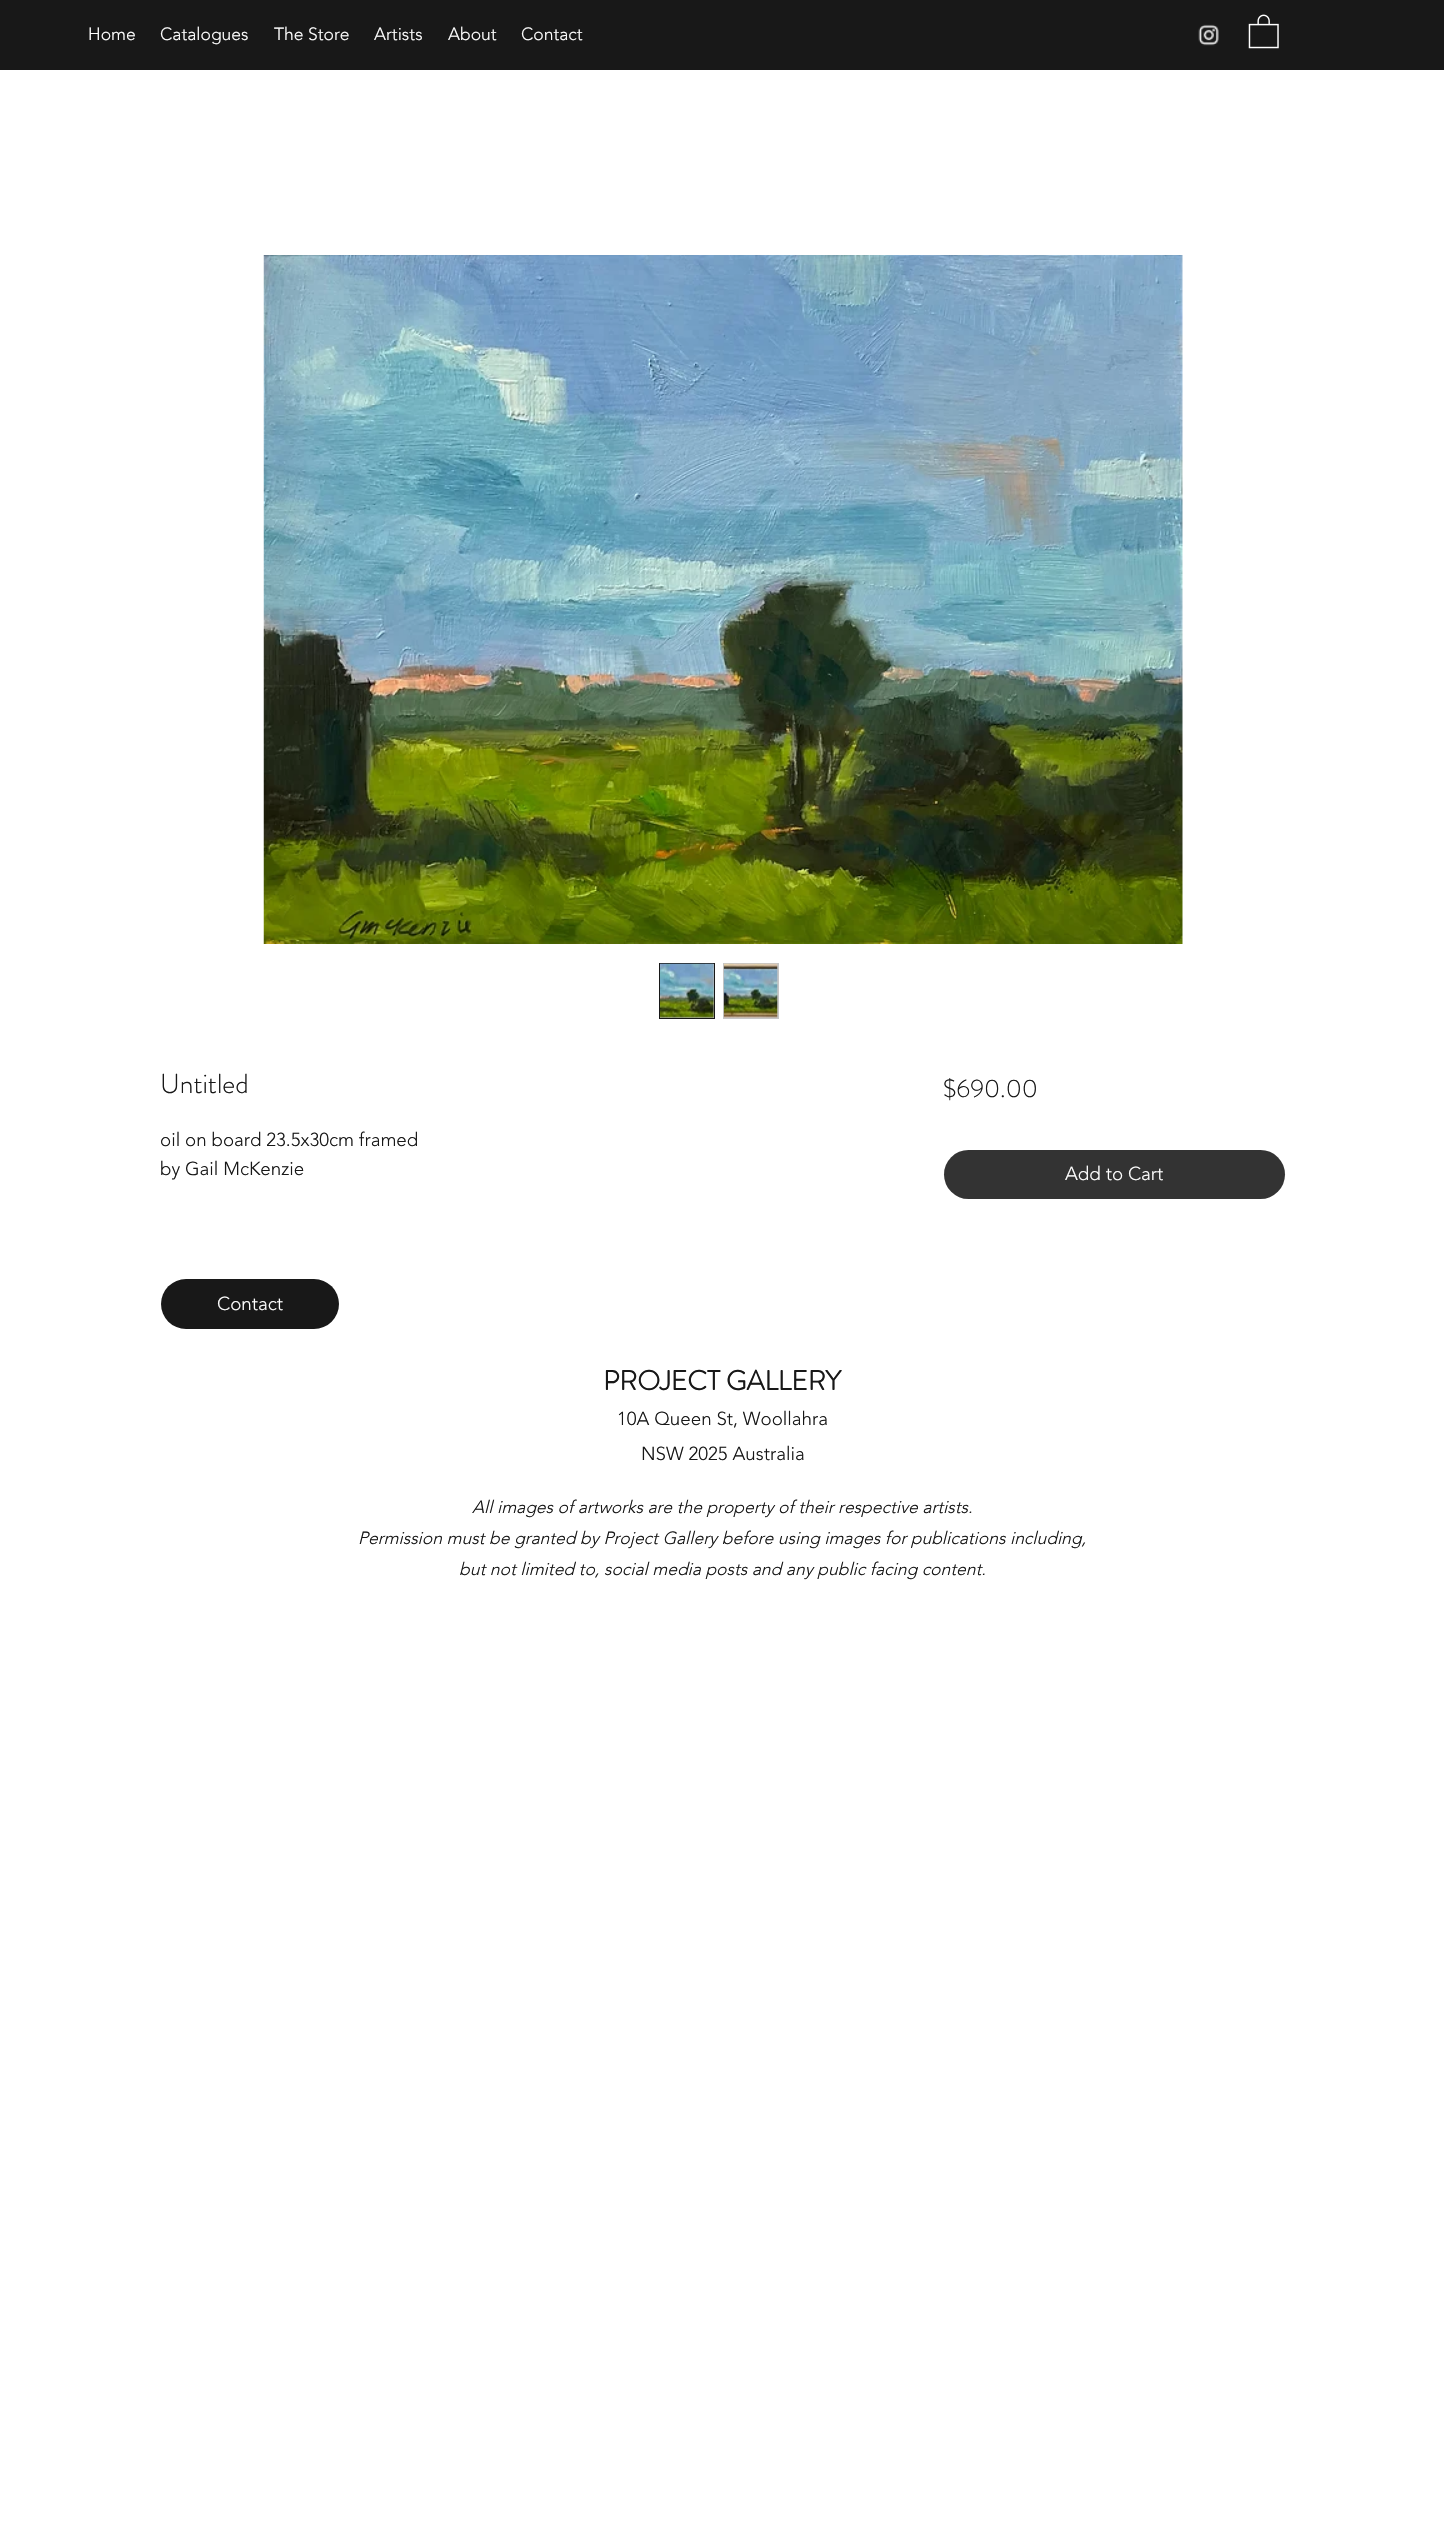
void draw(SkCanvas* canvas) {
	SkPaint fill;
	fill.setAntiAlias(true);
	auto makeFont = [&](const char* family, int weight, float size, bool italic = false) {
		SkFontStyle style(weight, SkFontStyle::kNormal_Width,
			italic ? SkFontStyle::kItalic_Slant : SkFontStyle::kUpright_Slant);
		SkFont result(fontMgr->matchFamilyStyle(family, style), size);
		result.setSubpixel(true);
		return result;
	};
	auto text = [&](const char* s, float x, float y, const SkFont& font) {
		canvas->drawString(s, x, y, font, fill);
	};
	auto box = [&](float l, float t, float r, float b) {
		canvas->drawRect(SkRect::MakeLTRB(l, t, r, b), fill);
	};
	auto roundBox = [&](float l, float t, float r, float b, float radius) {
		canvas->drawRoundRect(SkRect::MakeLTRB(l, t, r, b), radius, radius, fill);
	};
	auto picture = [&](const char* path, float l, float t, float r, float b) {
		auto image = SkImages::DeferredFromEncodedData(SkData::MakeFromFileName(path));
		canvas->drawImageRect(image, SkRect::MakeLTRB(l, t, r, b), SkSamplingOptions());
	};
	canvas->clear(0xFFFFFFFF);
	fill.setColor(0xFF181818);
	box(0, 0, 1444, 70);
	picture("image0.png", 1198, 24, 1219, 46);
	picture("image1.png", 1248, 14, 1279, 49);
	picture("image2.png", 263, 255, 1183, 944);
	fill.setColor(0xFFC5C5C5);
	canvas->drawRect(SkRect::MakeLTRB(659.5f, 963.5f, 714.5f, 1018.5f), fill);
	fill.setStyle(SkPaint::kStroke_Style);
	fill.setStrokeWidth(1);
	fill.setColor(0xFF181818);
	canvas->drawRect(SkRect::MakeLTRB(659.5f, 963.5f, 714.5f, 1018.5f), fill);
	picture("image3.png", 660, 963, 714, 1018);
	fill.setStyle(SkPaint::kFill_Style);
	fill.setColor(0xFFC5C5C5);
	box(723, 963, 779, 1019);
	picture("image4.png", 723, 963, 778, 1018);
	fill.setColor(0xFF333333);
	roundBox(944, 1150, 1285, 1199, 24.5f);
	fill.setColor(0xFF181818);
	roundBox(161, 1279, 339, 1329, 25);
	auto font1 = makeFont("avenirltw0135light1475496", 300, 17.5f);
	fill.setColor(0xFFFFFFFF);
	text("Home", 88, 40, font1);
	text("Catalogues", 160, 40, font1);
	text("The Store", 274, 40, font1);
	text("Artists", 374, 40, font1);
	text("About", 448, 40, font1);
	text("Contact", 521, 40, font1);
	auto font2 = makeFont("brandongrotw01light", 300, 27.5f);
	fill.setColor(0xFF181818);
	text("Untitled", 160, 1093, font2);
	auto font3 = makeFont("avenirltw0135light1475496", 300, 18.75f);
	text("oil on board 23.5x30cm framed", 160, 1146, font3);
	text("by Gail McKenzie", 160, 1175, font3);
	auto font4 = makeFont("brandongrotw01light", 300, 25);
	text("$690.00", 943, 1097, font4);
	fill.setColor(0xFFFFFFFF);
	text("Add to Cart", 1065, 1180, font3);
	text("Contact", 217, 1310, font3);
	auto font5 = makeFont("brandongrotw01light", 700, 27.5f);
	fill.setColor(0xFF181818);
	text("PROJECT GALLERY", 603, 1390, font5);
	text("10A Queen St, Woollahra", 617, 1425, font3);
	text("NSW 2025 Australia", 641, 1460, font3);
	auto font6 = makeFont("avenirltw0135light1475496", 300, 17.5f, true);
	text("All images of artworks are the property of their respective artists.", 472, 1513, font6);
	text("Permission must be granted by Project Gallery before using images for publications including,", 358, 1544, font6);
	text("but not limited to, social media posts and any public facing content.", 459, 1575, font6);
}
